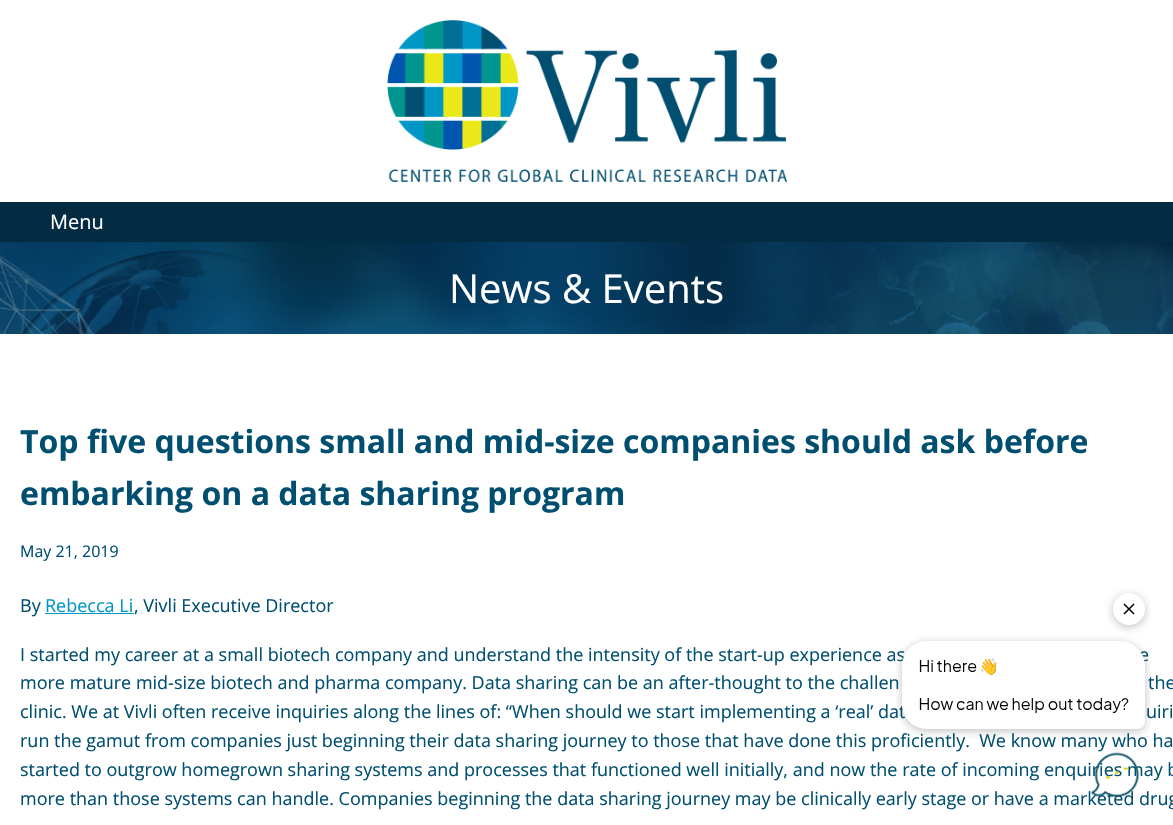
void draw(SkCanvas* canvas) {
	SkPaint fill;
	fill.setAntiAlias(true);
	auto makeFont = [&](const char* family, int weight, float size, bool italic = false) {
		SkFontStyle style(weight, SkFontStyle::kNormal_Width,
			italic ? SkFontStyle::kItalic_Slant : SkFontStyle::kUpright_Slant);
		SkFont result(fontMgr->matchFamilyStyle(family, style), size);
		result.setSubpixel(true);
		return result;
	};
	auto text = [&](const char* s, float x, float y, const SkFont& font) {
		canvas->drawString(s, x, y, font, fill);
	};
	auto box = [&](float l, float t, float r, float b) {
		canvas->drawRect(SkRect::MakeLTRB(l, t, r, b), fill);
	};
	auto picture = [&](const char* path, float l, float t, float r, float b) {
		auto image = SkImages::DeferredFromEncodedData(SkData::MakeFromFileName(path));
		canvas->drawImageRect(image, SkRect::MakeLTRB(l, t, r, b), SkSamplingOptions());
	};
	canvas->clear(0xFFFFFFFF);
	picture("image0.png", 387, 20, 787, 182);
	fill.setColor(0xFF032C42);
	box(0, 202, 1173, 242);
	picture("image1.png", 0, 242, 1173, 334);
	fill.setColor(0xFF0096C5);
	box(45, 613, 134, 614);
	auto font1 = makeFont("Open Sans", 400, 20);
	fill.setColor(0xFFFFFFFF);
	text("Menu", 50, 229, font1);
	auto font2 = makeFont("Open Sans", 400, 40);
	text("News & Events", 449, 303, font2);
	auto font3 = makeFont("Open Sans", 700, 32);
	fill.setColor(0xFF004F70);
	text("Top five questions small and mid-size companies should ask before", 20, 453, font3);
	text("embarking on a data sharing program", 20, 505, font3);
	auto font4 = makeFont("Open Sans", 400, 16);
	text("May 21, 2019", 20, 557, font4);
	auto font5 = makeFont("Open Sans", 400, 18);
	text("By", 20, 612, font5);
	fill.setColor(0xFF0096C5);
	text("Rebecca Li", 45, 612, font5);
	fill.setColor(0xFF004F70);
	text(", Vivli Executive Director", 134, 612, font5);
	text("I started my career at a small biotech company and understand the intensity of the start-up experience as", 20, 661, font5);
	text("e", 1139, 661, font5);
	text("more mature mid-size biotech and pharma company. Data sharing can be an after-thought to the challen", 20, 689, font5);
	text("the", 1148, 689, font5);
	text("clinic. We at Vivli often receive inquiries along the lines of: “When should we start implementing a ‘real’ dat", 20, 718, font5);
	text("uiri", 1146, 718, font5);
	text("run the gamut from companies just beginning their data sharing journey to those that have done this proficiently.  We know many who ha", 20, 747, font5);
	text("started to outgrow homegrown sharing systems and processes that functioned well initially, and now the rate of incoming enquiries may b", 20, 776, font5);
	text("more than those systems can handle. Companies beginning the data sharing journey may be clinically early stage or have a marketed drug", 20, 805, font5);
	picture("image2.png", 896, 589, 1151, 798);
}
